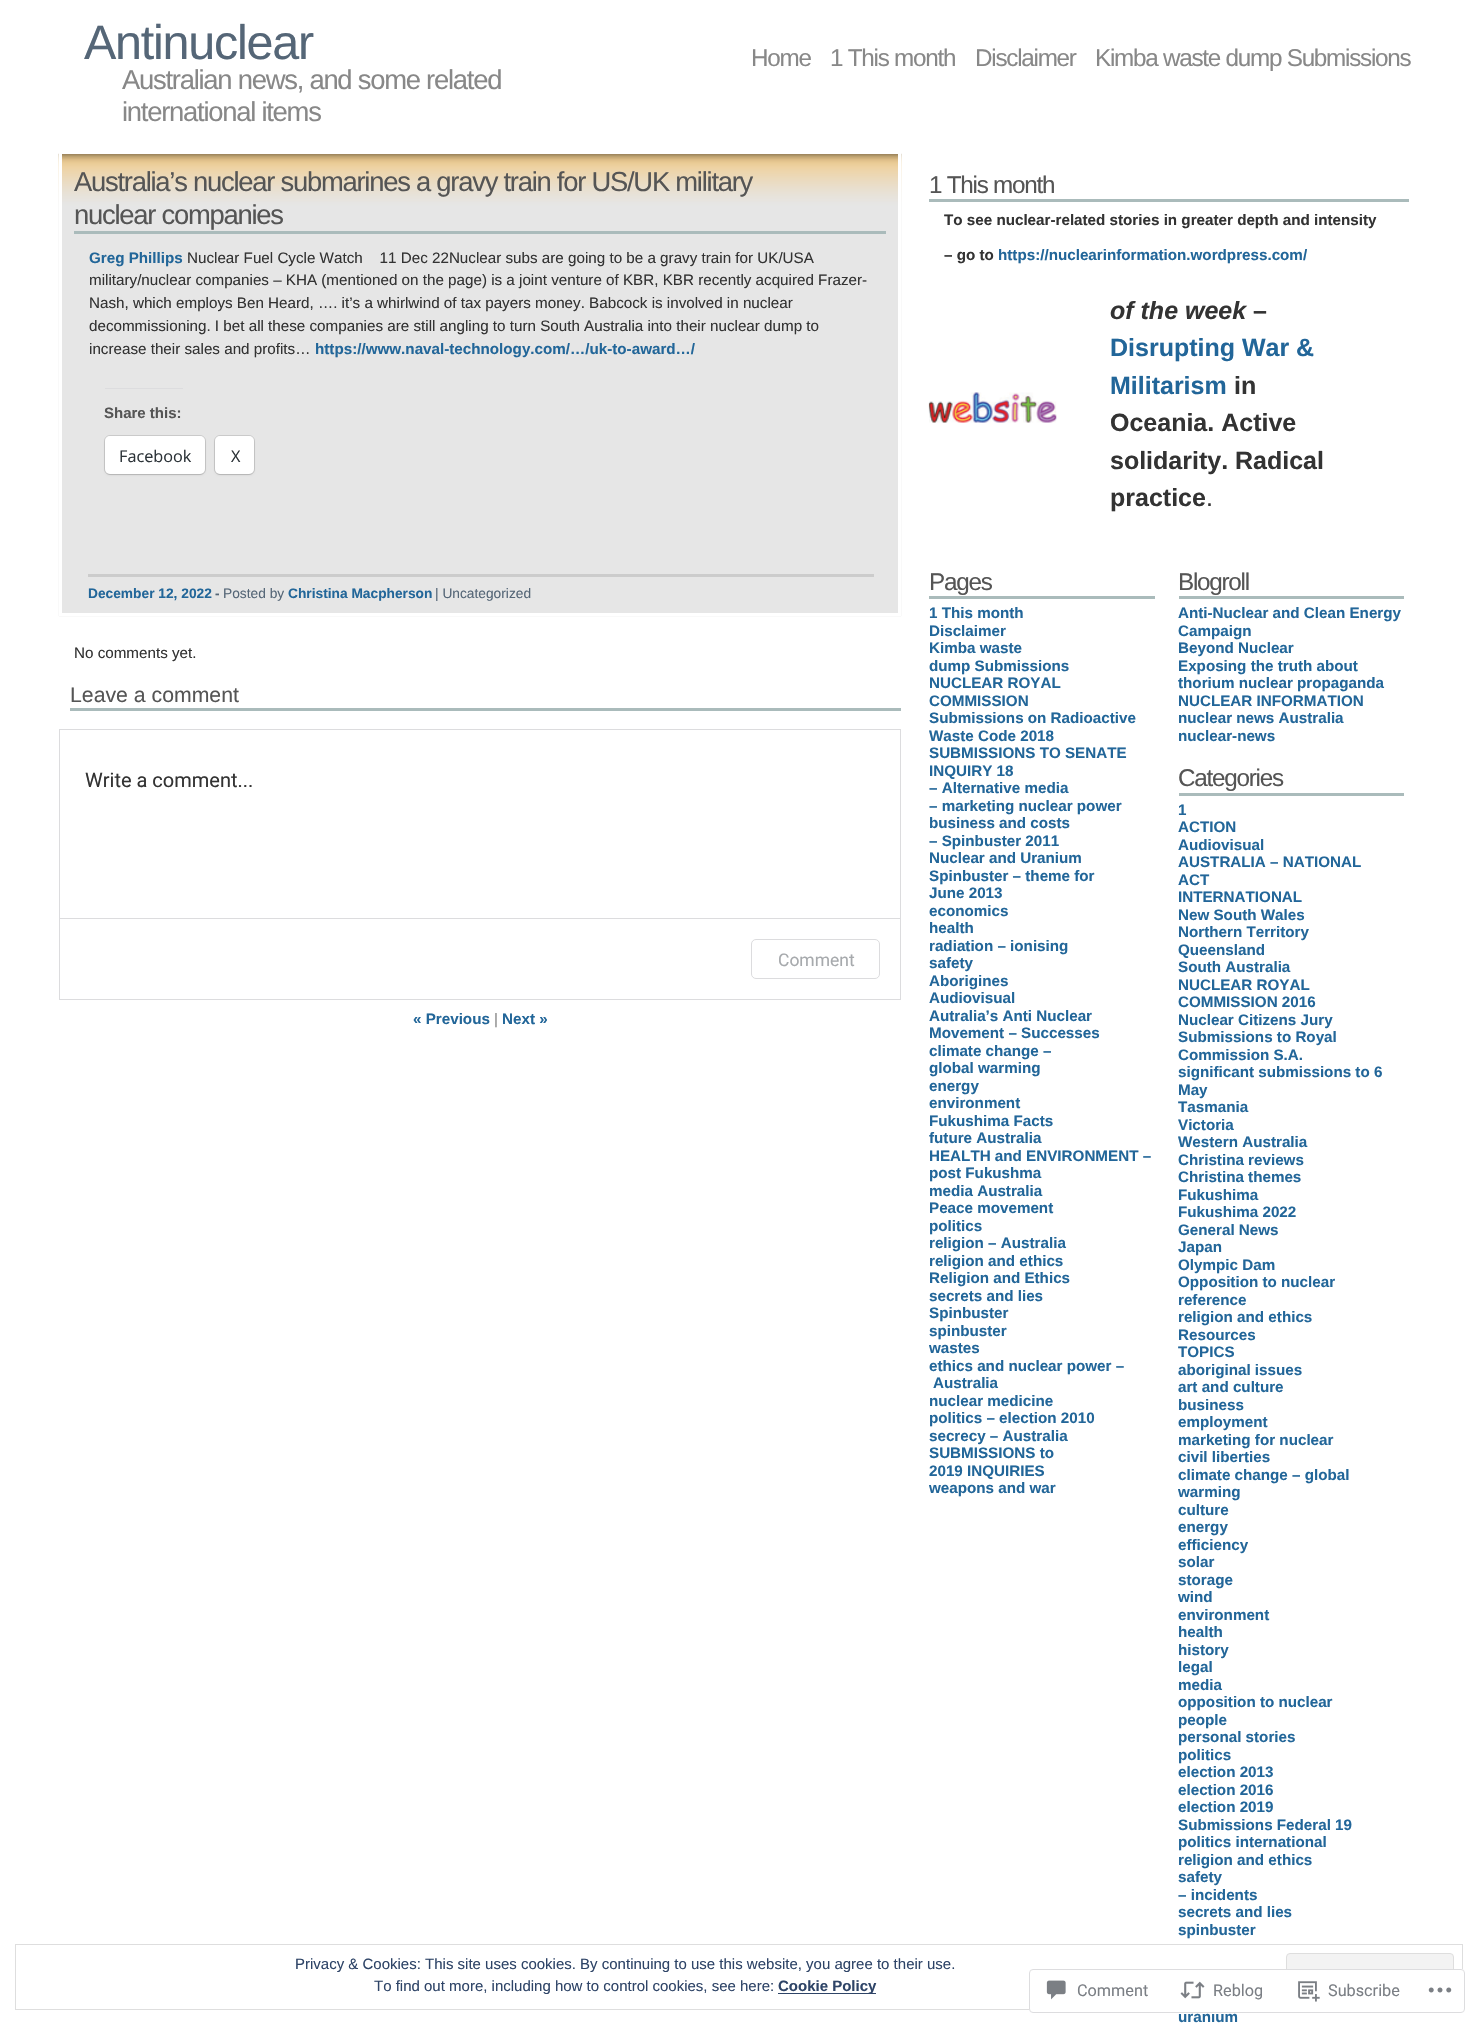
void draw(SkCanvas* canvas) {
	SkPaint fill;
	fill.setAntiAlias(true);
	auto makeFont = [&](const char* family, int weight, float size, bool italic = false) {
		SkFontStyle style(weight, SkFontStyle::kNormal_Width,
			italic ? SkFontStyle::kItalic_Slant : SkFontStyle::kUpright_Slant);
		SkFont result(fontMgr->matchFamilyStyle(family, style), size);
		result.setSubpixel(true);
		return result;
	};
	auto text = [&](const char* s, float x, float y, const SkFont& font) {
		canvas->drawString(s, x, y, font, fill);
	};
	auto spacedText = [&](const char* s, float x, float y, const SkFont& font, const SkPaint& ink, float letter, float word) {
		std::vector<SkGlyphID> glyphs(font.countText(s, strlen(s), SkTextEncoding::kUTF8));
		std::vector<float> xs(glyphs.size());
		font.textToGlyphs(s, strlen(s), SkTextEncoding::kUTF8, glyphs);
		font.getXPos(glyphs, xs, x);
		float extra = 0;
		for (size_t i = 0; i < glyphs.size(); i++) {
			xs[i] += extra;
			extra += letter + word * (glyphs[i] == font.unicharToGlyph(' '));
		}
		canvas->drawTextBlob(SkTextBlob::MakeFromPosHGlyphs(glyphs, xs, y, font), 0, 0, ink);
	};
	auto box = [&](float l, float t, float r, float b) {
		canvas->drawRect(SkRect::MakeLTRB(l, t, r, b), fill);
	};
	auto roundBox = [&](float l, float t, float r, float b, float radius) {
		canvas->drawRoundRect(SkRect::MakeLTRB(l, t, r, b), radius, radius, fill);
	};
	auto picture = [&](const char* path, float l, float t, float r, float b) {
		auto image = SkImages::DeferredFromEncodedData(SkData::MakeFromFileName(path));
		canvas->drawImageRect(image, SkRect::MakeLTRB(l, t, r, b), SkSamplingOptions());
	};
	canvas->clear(0xFFFFFFFF);
	picture("image0.png", 58, 153, 902, 617);
	fill.setStyle(SkPaint::kStroke_Style);
	fill.setStrokeWidth(3);
	fill.setColor(0xFFFFFFFF);
	canvas->drawRect(SkRect::MakeLTRB(60.5f, 152.5f, 899.5f, 614.5f), fill);
	fill.setStyle(SkPaint::kFill_Style);
	fill.setColor(0xFFAABBBB);
	box(74, 231, 886, 234);
	fill.setColor(0xFFDCDCDE);
	box(105, 388, 183, 389);
	fill.setStyle(SkPaint::kStroke_Style);
	fill.setStrokeWidth(1);
	fill.setColor(0xFFCACACA);
	canvas->drawRoundRect(SkRect::MakeLTRB(104.5f, 435.5f, 205.5f, 474.5f), 5.5f, 5.5f, fill);
	fill.setStyle(SkPaint::kFill_Style);
	fill.setColor(0x1F000000);
	fill.setMaskFilter(SkMaskFilter::MakeBlur(kNormal_SkBlurStyle, 1));
	canvas->drawRoundRect(SkRect::MakeLTRB(105, 438, 205, 475), 5, 5, fill);
	fill.setMaskFilter(nullptr);
	fill.setColor(0xFFFFFFFF);
	roundBox(105, 436, 205, 474, 5);
	fill.setStyle(SkPaint::kStroke_Style);
	fill.setColor(0xFFCACACA);
	canvas->drawRoundRect(SkRect::MakeLTRB(214.5f, 435.5f, 254.5f, 474.5f), 5.5f, 5.5f, fill);
	fill.setStyle(SkPaint::kFill_Style);
	fill.setColor(0x1F000000);
	fill.setMaskFilter(SkMaskFilter::MakeBlur(kNormal_SkBlurStyle, 1));
	canvas->drawRoundRect(SkRect::MakeLTRB(215, 438, 254, 475), 5, 5, fill);
	fill.setMaskFilter(nullptr);
	fill.setColor(0xFFFFFFFF);
	roundBox(215, 436, 254, 474, 5);
	fill.setColor(0xFFCCCCCC);
	box(88, 574, 874, 577);
	fill.setColor(0xFFAABBBB);
	box(70, 708, 901, 711);
	fill.setStyle(SkPaint::kStroke_Style);
	fill.setColor(0xFFDCDCDE);
	canvas->drawRect(SkRect::MakeLTRB(59.5f, 729.5f, 900.5f, 999.5f), fill);
	fill.setStyle(SkPaint::kFill_Style);
	box(60, 918, 900, 919);
	fill.setStyle(SkPaint::kStroke_Style);
	canvas->drawRoundRect(SkRect::MakeLTRB(751.5f, 939.5f, 879.5f, 978.5f), 4.5f, 4.5f, fill);
	fill.setStyle(SkPaint::kFill_Style);
	fill.setColor(0xFFAABBBB);
	box(929, 199, 1409, 202);
	picture("image1.png", 928, 392, 1057, 423);
	box(929, 596, 1155, 599);
	box(1179, 596, 1404, 599);
	box(1179, 793, 1404, 796);
	fill.setStyle(SkPaint::kStroke_Style);
	fill.setColor(0xFFDEDEDE);
	canvas->drawRect(SkRect::MakeLTRB(15.5f, 1944.5f, 1462.5f, 2009.5f), fill);
	fill.setStyle(SkPaint::kFill_Style);
	fill.setColor(0xFFF3F3F3);
	canvas->drawRoundRect(SkRect::MakeLTRB(1286.5f, 1953.5f, 1453.5f, 2000.5f), 3.5f, 3.5f, fill);
	fill.setStyle(SkPaint::kStroke_Style);
	fill.setColor(0xFFDEDEDE);
	canvas->drawRoundRect(SkRect::MakeLTRB(1286.5f, 1953.5f, 1453.5f, 2000.5f), 3.5f, 3.5f, fill);
	fill.setStyle(SkPaint::kFill_Style);
	fill.setColor(0xFF2E4467);
	box(778, 1993, 876, 1994);
	auto font1 = makeFont("Liberation Sans", 400, 48.5f);
	fill.setColor(0xFF556677);
	spacedText("Antinuclear", 84, 59, font1, fill, -1.25f, 0);
	auto font2 = makeFont("Liberation Sans", 400, 27.4f);
	fill.setColor(0xFF888888);
	spacedText("Australian news, and some related", 122, 89, font2, fill, -1.25f, 0);
	spacedText("international items", 122, 121, font2, fill, -1.25f, 0);
	auto font3 = makeFont("Liberation Sans", 400, 24.25f);
	spacedText("Home", 751, 66, font3, fill, -1.25f, 0);
	spacedText("1 This month", 830, 66, font3, fill, -1.25f, 0);
	spacedText("Disclaimer", 975, 66, font3, fill, -1.25f, 0);
	spacedText("Kimba waste dump Submissions", 1095, 66, font3, fill, -1.25f, 0);
	fill.setColor(0xFF555555);
	spacedText("Australia’s nuclear submarines a gravy train for US/UK military", 74, 191, font2, fill, -1.25f, 0);
	spacedText("nuclear companies", 74, 224, font2, fill, -1.25f, 0);
	auto font4 = makeFont("Liberation Sans", 700, 15.2f);
	fill.setColor(0xFF226699);
	text("Greg Phillips", 89, 263, font4);
	auto font5 = makeFont("Liberation Sans", 400, 15.2f);
	fill.setColor(0xFF333333);
	text("Nuclear Fuel Cycle Watch    11 Dec 22Nuclear subs are going to be a gravy train for UK/USA", 187, 263, font5);
	text("military/nuclear companies – KHA (mentioned on the page) is a joint venture of KBR, KBR recently acquired Frazer-", 89, 285, font5);
	text("Nash, which employs Ben Heard, …. it’s a whirlwind of tax payers money. Babcock is involved in nuclear", 89, 308, font5);
	text("decommissioning. I bet all these companies are still angling to turn South Australia into their nuclear dump to", 89, 331, font5);
	text("increase their sales and profits…", 89, 354, font5);
	fill.setColor(0xFF226699);
	text("https://www.naval-technology.com/…/uk-to-award…/", 315, 354, font4);
	auto font6 = makeFont("Liberation Sans", 700, 15);
	fill.setColor(0xFF555555);
	text("Share this:", 104, 418, font6);
	auto font7 = makeFont("Open Sans", 400, 16.25f);
	fill.setColor(0xFF2C3338);
	text("Facebook", 119, 462, font7);
	text("X", 231, 462, font7);
	auto font8 = makeFont("Liberation Sans", 700, 13.75f);
	fill.setColor(0xFF226699);
	text("December 12, 2022", 88, 598, font8);
	fill.setColor(0xFF556677);
	text("-", 215, 598, font8);
	auto font9 = makeFont("Liberation Sans", 400, 13.75f);
	text("Posted by", 223, 598, font9);
	fill.setColor(0xFF226699);
	text("Christina Macpherson", 288, 598, font8);
	fill.setColor(0xFF556677);
	text("| Uncategorized", 435, 598, font9);
	fill.setColor(0xFF333333);
	text("No comments yet.", 74, 658, font5);
	auto font10 = makeFont("Liberation Sans", 400, 21.25f);
	fill.setColor(0xFF555555);
	text("Leave a comment", 70, 702, font10);
	auto font11 = makeFont("Roboto", 400, 20);
	fill.setColor(0xFF333333);
	text("Write a comment...", 85, 787, font11);
	auto font12 = makeFont("Roboto", 400, 17.5f);
	fill.setColor(0xFFA7AAAD);
	text("Comment", 778, 966, font12);
	fill.setColor(0xFF226699);
	text("« Previous", 413, 1024, font4);
	fill.setColor(0xFF888888);
	text("|", 494, 1024, font5);
	fill.setColor(0xFF226699);
	text("Next »", 502, 1024, font4);
	fill.setColor(0xFF555555);
	spacedText("1 This month", 929, 193, font3, fill, -1.25f, 0);
	fill.setColor(0xFF333333);
	text("To see nuclear-related stories in greater depth and intensity", 944, 225, font4);
	text("– go to", 944, 260, font4);
	fill.setColor(0xFF226699);
	text("https://nuclearinformation.wordpress.com/", 998, 260, font4);
	auto font13 = makeFont("Liberation Sans", 700, 25, true);
	fill.setColor(0xFF333333);
	text("of the week", 1110, 319, font13);
	auto font14 = makeFont("Liberation Sans", 700, 25);
	text("–", 1253, 319, font14);
	fill.setColor(0xFF226699);
	text("Disrupting War &", 1110, 356, font14);
	text("Militarism", 1110, 394, font14);
	fill.setColor(0xFF333333);
	text("in", 1234, 394, font14);
	text("Oceania. Active", 1110, 431, font14);
	text("solidarity. Radical", 1110, 469, font14);
	text("practice", 1110, 506, font14);
	auto font15 = makeFont("Liberation Sans", 400, 25);
	text(".", 1206, 506, font15);
	fill.setColor(0xFF555555);
	spacedText("Pages", 929, 590, font3, fill, -1.25f, 0);
	fill.setColor(0xFF226699);
	text("1 This month", 929, 618, font4);
	text("Disclaimer", 929, 636, font4);
	text("Kimba waste", 929, 653, font4);
	text("dump Submissions", 929, 671, font4);
	text("NUCLEAR ROYAL", 929, 688, font4);
	text("COMMISSION", 929, 706, font4);
	text("Submissions on Radioactive", 929, 723, font4);
	text("Waste Code 2018", 929, 741, font4);
	text("SUBMISSIONS TO SENATE", 929, 758, font4);
	text("INQUIRY 18", 929, 776, font4);
	text("– Alternative media", 929, 793, font4);
	text("– marketing nuclear power", 929, 811, font4);
	text("business and costs", 929, 828, font4);
	text("– Spinbuster 2011", 929, 846, font4);
	text("Nuclear and Uranium", 929, 863, font4);
	text("Spinbuster – theme for", 929, 881, font4);
	text("June 2013", 929, 898, font4);
	text("economics", 929, 916, font4);
	text("health", 929, 933, font4);
	text("radiation – ionising", 929, 951, font4);
	text("safety", 929, 968, font4);
	text("Aborigines", 929, 986, font4);
	text("Audiovisual", 929, 1003, font4);
	text("Autralia’s Anti Nuclear", 929, 1021, font4);
	text("Movement – Successes", 929, 1038, font4);
	text("climate change –", 929, 1056, font4);
	text("global warming", 929, 1073, font4);
	text("energy", 929, 1091, font4);
	text("environment", 929, 1108, font4);
	text("Fukushima Facts", 929, 1126, font4);
	text("future Australia", 929, 1143, font4);
	text("HEALTH and ENVIRONMENT –", 929, 1161, font4);
	text("post Fukushma", 929, 1178, font4);
	text("media Australia", 929, 1196, font4);
	text("Peace movement", 929, 1213, font4);
	text("politics", 929, 1231, font4);
	text("religion – Australia", 929, 1248, font4);
	text("religion and ethics", 929, 1266, font4);
	text("Religion and Ethics", 929, 1283, font4);
	text("secrets and lies", 929, 1301, font4);
	text("Spinbuster", 929, 1318, font4);
	text("spinbuster", 929, 1336, font4);
	text("wastes", 929, 1353, font4);
	text("ethics and nuclear power –", 929, 1371, font4);
	text("Australia", 933, 1388, font4);
	text("nuclear medicine", 929, 1406, font4);
	text("politics – election 2010", 929, 1423, font4);
	text("secrecy – Australia", 929, 1441, font4);
	text("SUBMISSIONS to", 929, 1458, font4);
	text("2019 INQUIRIES", 929, 1476, font4);
	text("weapons and war", 929, 1493, font4);
	fill.setColor(0xFF555555);
	spacedText("Blogroll", 1178, 590, font3, fill, -1.25f, 0);
	fill.setColor(0xFF226699);
	text("Anti-Nuclear and Clean Energy", 1178, 618, font4);
	text("Campaign", 1178, 636, font4);
	text("Beyond Nuclear", 1178, 653, font4);
	text("Exposing the truth about", 1178, 671, font4);
	text("thorium nuclear propaganda", 1178, 688, font4);
	text("NUCLEAR INFORMATION", 1178, 706, font4);
	text("nuclear news Australia", 1178, 723, font4);
	text("nuclear-news", 1178, 741, font4);
	fill.setColor(0xFF555555);
	spacedText("Categories", 1178, 786, font3, fill, -1.25f, 0);
	fill.setColor(0xFF226699);
	text("1", 1178, 815, font4);
	text("ACTION", 1178, 832, font4);
	text("Audiovisual", 1178, 850, font4);
	text("AUSTRALIA – NATIONAL", 1178, 867, font4);
	text("ACT", 1178, 885, font4);
	text("INTERNATIONAL", 1178, 902, font4);
	text("New South Wales", 1178, 920, font4);
	text("Northern Territory", 1178, 937, font4);
	text("Queensland", 1178, 955, font4);
	text("South Australia", 1178, 972, font4);
	text("NUCLEAR ROYAL", 1178, 990, font4);
	text("COMMISSION 2016", 1178, 1007, font4);
	text("Nuclear Citizens Jury", 1178, 1025, font4);
	text("Submissions to Royal", 1178, 1042, font4);
	text("Commission S.A.", 1178, 1060, font4);
	text("significant submissions to 6", 1178, 1077, font4);
	text("May", 1178, 1095, font4);
	text("Tasmania", 1178, 1112, font4);
	text("Victoria", 1178, 1130, font4);
	text("Western Australia", 1178, 1147, font4);
	text("Christina reviews", 1178, 1165, font4);
	text("Christina themes", 1178, 1182, font4);
	text("Fukushima", 1178, 1200, font4);
	text("Fukushima 2022", 1178, 1217, font4);
	text("General News", 1178, 1235, font4);
	text("Japan", 1178, 1252, font4);
	text("Olympic Dam", 1178, 1270, font4);
	text("Opposition to nuclear", 1178, 1287, font4);
	text("reference", 1178, 1305, font4);
	text("religion and ethics", 1178, 1322, font4);
	text("Resources", 1178, 1340, font4);
	text("TOPICS", 1178, 1357, font4);
	text("aboriginal issues", 1178, 1375, font4);
	text("art and culture", 1178, 1392, font4);
	text("business", 1178, 1410, font4);
	text("employment", 1178, 1427, font4);
	text("marketing for nuclear", 1178, 1445, font4);
	text("civil liberties", 1178, 1462, font4);
	text("climate change – global", 1178, 1480, font4);
	text("warming", 1178, 1497, font4);
	text("culture", 1178, 1515, font4);
	text("energy", 1178, 1532, font4);
	text("efficiency", 1178, 1550, font4);
	text("solar", 1178, 1567, font4);
	text("storage", 1178, 1585, font4);
	text("wind", 1178, 1602, font4);
	text("environment", 1178, 1620, font4);
	text("health", 1178, 1637, font4);
	text("history", 1178, 1655, font4);
	text("legal", 1178, 1672, font4);
	text("media", 1178, 1690, font4);
	text("opposition to nuclear", 1178, 1707, font4);
	text("people", 1178, 1725, font4);
	text("personal stories", 1178, 1742, font4);
	text("politics", 1178, 1760, font4);
	text("election 2013", 1178, 1777, font4);
	text("election 2016", 1178, 1795, font4);
	text("election 2019", 1178, 1812, font4);
	text("Submissions Federal 19", 1178, 1830, font4);
	text("politics international", 1178, 1847, font4);
	text("religion and ethics", 1178, 1865, font4);
	text("safety", 1178, 1882, font4);
	text("– incidents", 1178, 1900, font4);
	text("secrets and lies", 1178, 1917, font4);
	text("spinbuster", 1178, 1935, font4);
	text("uranium", 1178, 2022, font4);
	auto font16 = makeFont("Liberation Sans", 400, 15);
	fill.setColor(0xFF2E4467);
	text("Privacy & Cookies: This site uses cookies. By continuing to use this website, you agree to their use.", 295, 1969, font16);
	text("To find out more, including how to control cookies, see here:", 374, 1991, font16);
	text("Cookie Policy", 778, 1991, font6);
	fill.setColor(0xFAFFFFFF);
	roundBox(1029, 1969, 1465, 2013, 4);
	fill.setStyle(SkPaint::kStroke_Style);
	fill.setColor(0xFADCDCDE);
	canvas->drawRoundRect(SkRect::MakeLTRB(1029.5f, 1969.5f, 1464.5f, 2012.5f), 3.5f, 3.5f, fill);
	picture("image2.png", 1046, 1980, 1066, 2000);
	auto font17 = makeFont("Roboto", 400, 16.25f);
	fill.setStyle(SkPaint::kFill_Style);
	fill.setColor(0xFF7B7F85);
	text("Comment", 1077, 1996, font17);
	picture("image3.png", 1180, 1981, 1205, 1999);
	text("Reblog", 1213, 1996, font17);
	picture("image4.png", 1298, 1981, 1320, 2002);
	text("Subscribe", 1328, 1996, font17);
	picture("image5.png", 1428, 1987, 1452, 1993);
}
